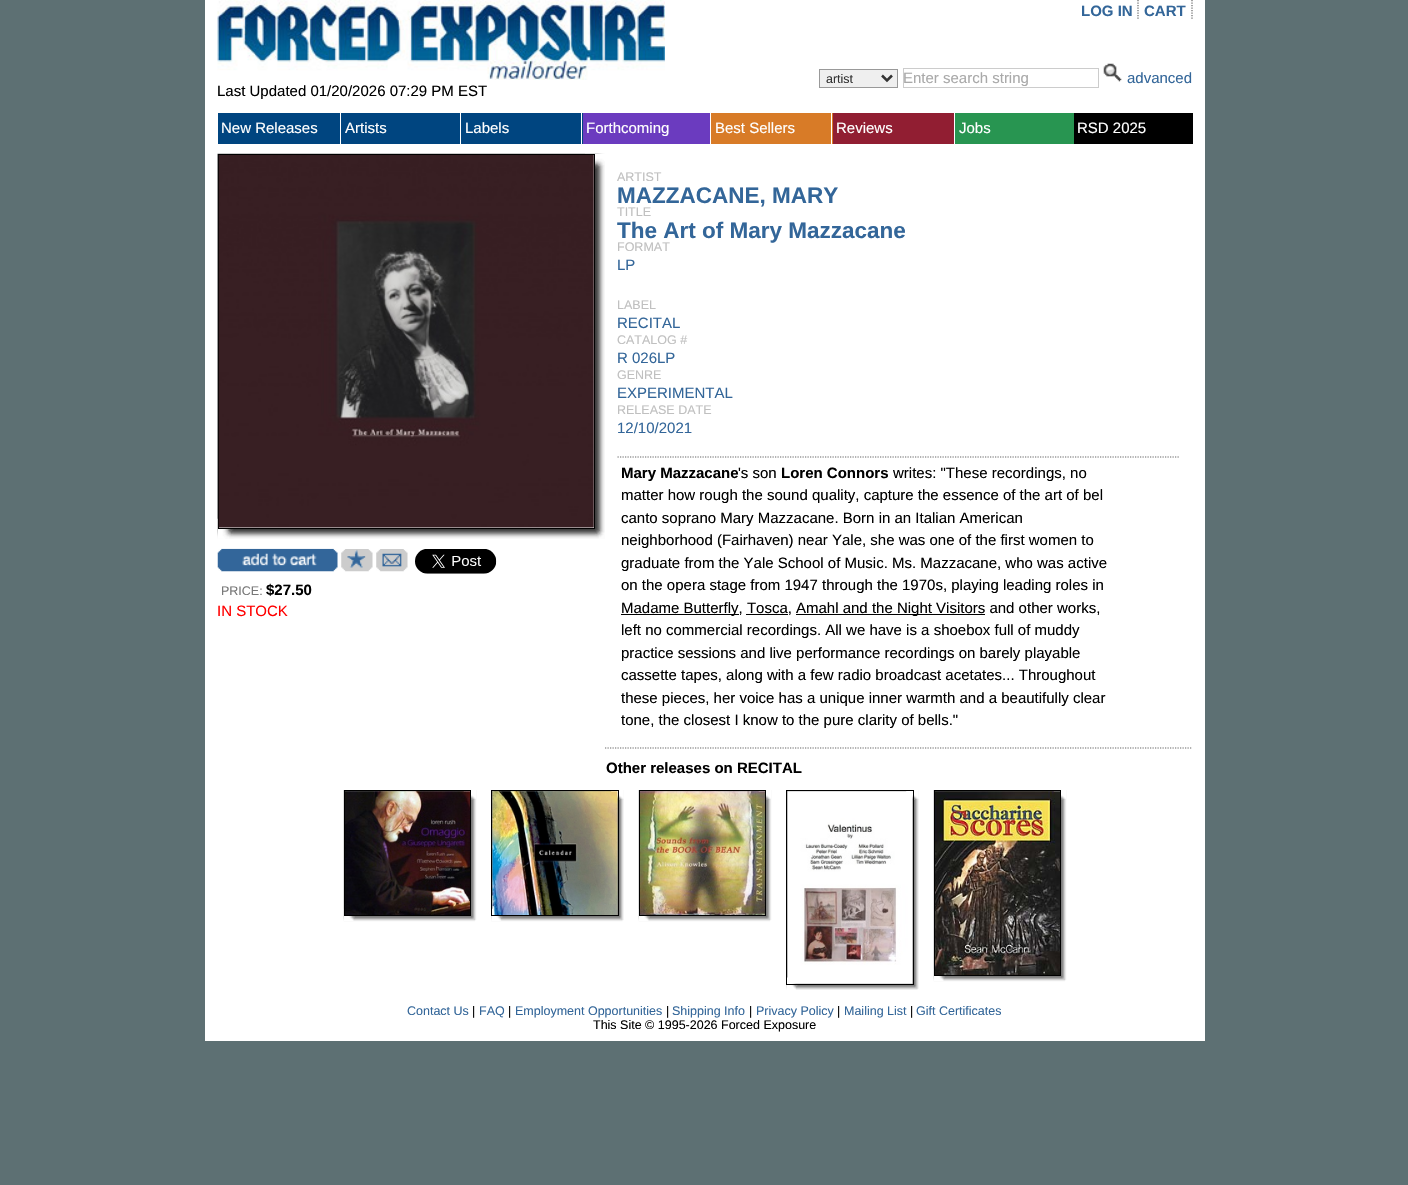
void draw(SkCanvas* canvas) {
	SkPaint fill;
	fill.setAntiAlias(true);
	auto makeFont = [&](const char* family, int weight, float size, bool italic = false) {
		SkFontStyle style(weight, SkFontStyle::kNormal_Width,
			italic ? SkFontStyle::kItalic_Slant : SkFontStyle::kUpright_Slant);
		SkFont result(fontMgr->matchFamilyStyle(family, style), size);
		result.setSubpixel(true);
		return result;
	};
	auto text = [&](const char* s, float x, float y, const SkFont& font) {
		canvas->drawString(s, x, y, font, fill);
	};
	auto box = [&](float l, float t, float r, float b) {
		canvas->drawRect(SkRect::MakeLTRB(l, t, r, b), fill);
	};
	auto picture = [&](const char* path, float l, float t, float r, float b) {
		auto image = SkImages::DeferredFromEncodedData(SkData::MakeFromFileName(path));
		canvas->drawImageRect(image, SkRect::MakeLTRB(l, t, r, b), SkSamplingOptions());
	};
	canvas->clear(0xFF5D7073);
	fill.setColor(0xFFFFFFFF);
	box(205, 0, 1205, 1041);
	fill.setStyle(SkPaint::kStroke_Style);
	fill.setStrokeWidth(1.2f);
	fill.setColor(0xFF666666);
	fill.setPathEffect(SkDashPathEffect::Make({{1.25f, 1.25f}}, 0));
	canvas->drawPath(SkPathBuilder().moveTo(1138, 0).lineTo(1138, 20).moveTo(1192, 0).lineTo(1192, 20).detach(), fill);
	fill.setPathEffect(nullptr);
	fill.setStyle(SkPaint::kFill_Style);
	fill.setColor(0xFFEFEFEF);
	canvas->drawRect(SkRect::MakeLTRB(819.5f, 69.5f, 897.5f, 87.5f), fill);
	fill.setStyle(SkPaint::kStroke_Style);
	fill.setStrokeWidth(1);
	fill.setColor(0xFF999999);
	canvas->drawRect(SkRect::MakeLTRB(819.5f, 69.5f, 897.5f, 87.5f), fill);
	fill.setStrokeWidth(2.5f);
	fill.setColor(0xFF333333);
	canvas->drawPath(SkPathBuilder().moveTo(882, 75.5f).lineTo(887, 80.5f).lineTo(892, 75.5f).detach(), fill);
	fill.setStrokeWidth(1);
	fill.setColor(0xFFCCCCCC);
	canvas->drawRect(SkRect::MakeLTRB(903.5f, 68.5f, 1098.5f, 87.5f), fill);
	picture("image0.png", 1103, 63, 1122, 82);
	picture("image1.png", 217, 0, 665, 80);
	fill.setStyle(SkPaint::kFill_Style);
	fill.setColor(0xFF004580);
	box(218, 113, 340, 144);
	box(341, 113, 460, 144);
	box(461, 113, 583, 144);
	fill.setColor(0xFFFFFFFF);
	box(581, 113, 582, 144);
	fill.setColor(0xFF6B3BBF);
	box(583, 113, 710, 144);
	fill.setColor(0xFFD87B27);
	box(711, 113, 833, 144);
	fill.setColor(0xFFFFFFFF);
	box(831, 113, 832, 144);
	fill.setColor(0xFF911E32);
	box(833, 113, 954, 144);
	fill.setColor(0xFF289551);
	box(955, 113, 1074, 144);
	fill.setColor(0xFF000000);
	box(1074, 113, 1193, 144);
	picture("image2.png", 217, 153, 605, 539);
	picture("image3.png", 217, 518, 234, 539);
	picture("image4.png", 585, 153, 605, 169);
	fill.setColor(0xFFFFFFFF);
	canvas->drawRect(SkRect::MakeLTRB(218.5f, 154.5f, 594.5f, 528.5f), fill);
	fill.setStyle(SkPaint::kStroke_Style);
	fill.setColor(0xFF000000);
	canvas->drawRect(SkRect::MakeLTRB(218.5f, 154.5f, 594.5f, 528.5f), fill);
	picture("image5.png", 218, 155, 594, 528);
	picture("image6.png", 217, 548, 338, 572);
	picture("image7.png", 341, 549, 373, 572);
	picture("image8.png", 376, 549, 408, 572);
	picture("image9.png", 415, 549, 497, 574);
	fill.setStrokeWidth(1.2f);
	fill.setColor(0xFF666666);
	fill.setPathEffect(SkDashPathEffect::Make({{1.25f, 1.25f}}, 0));
	canvas->drawPath(SkPathBuilder().moveTo(605, 748).lineTo(1192.5f, 748).detach(), fill);
	fill.setPathEffect(nullptr);
	fill.setPathEffect(SkDashPathEffect::Make({{1.25f, 1.25f}}, 0));
	canvas->drawPath(SkPathBuilder().moveTo(617.5f, 457).lineTo(1180, 457).detach(), fill);
	fill.setPathEffect(nullptr);
	fill.setStyle(SkPaint::kFill_Style);
	fill.setColor(0xFF000000);
	box(621, 614, 739, 615);
	box(746, 614, 788, 615);
	box(796, 614, 985, 615);
	picture("image10.png", 343, 790, 477, 922);
	picture("image11.png", 343, 908, 355, 921);
	picture("image12.png", 463, 790, 476, 800);
	fill.setStyle(SkPaint::kStroke_Style);
	fill.setStrokeWidth(1);
	canvas->drawRect(SkRect::MakeLTRB(344.5f, 790.5f, 470.5f, 915.5f), fill);
	picture("image13.png", 345, 791, 470, 915);
	picture("image14.png", 491, 790, 624, 922);
	picture("image15.png", 491, 908, 503, 921);
	picture("image16.png", 611, 790, 624, 800);
	canvas->drawRect(SkRect::MakeLTRB(491.5f, 790.5f, 618.5f, 915.5f), fill);
	picture("image17.png", 492, 791, 618, 915);
	picture("image18.png", 638, 790, 772, 922);
	picture("image11.png", 638, 908, 650, 921);
	picture("image12.png", 758, 790, 771, 800);
	canvas->drawRect(SkRect::MakeLTRB(639.5f, 790.5f, 765.5f, 915.5f), fill);
	picture("image19.png", 640, 791, 765, 915);
	picture("image20.png", 786, 790, 919, 990);
	picture("image21.png", 786, 977, 798, 990);
	picture("image16.png", 906, 790, 919, 800);
	canvas->drawRect(SkRect::MakeLTRB(786.5f, 790.5f, 913.5f, 984.5f), fill);
	picture("image22.png", 787, 791, 913, 984);
	picture("image23.png", 933, 790, 1067, 982);
	picture("image11.png", 933, 968, 945, 981);
	picture("image12.png", 1053, 790, 1066, 800);
	canvas->drawRect(SkRect::MakeLTRB(934.5f, 790.5f, 1060.5f, 975.5f), fill);
	picture("image24.png", 935, 791, 1060, 975);
	auto font1 = makeFont("Liberation Sans", 700, 15);
	fill.setStyle(SkPaint::kFill_Style);
	fill.setColor(0xFF336699);
	text("LOG IN", 1081, 16, font1);
	text("CART", 1144, 16, font1);
	auto font2 = makeFont("Liberation Sans", 400, 12.5f);
	fill.setColor(0xFF333333);
	text("artist", 826, 83, font2);
	auto font3 = makeFont("Liberation Sans", 400, 15);
	fill.setColor(0xFFA9A9A9);
	text("Enter search string", 903, 83, font3);
	fill.setColor(0xFF336699);
	text("advanced", 1127, 83, font3);
	fill.setColor(0xFF000000);
	text("Last Updated 01/20/2026 07:29 PM EST", 217, 96, font3);
	fill.setColor(0xFFFFFFFF);
	text("New Releases", 221, 133, font3);
	text("Artists", 345, 133, font3);
	text("Labels", 465, 133, font3);
	text("Forthcoming", 586, 133, font3);
	text("Best Sellers", 715, 133, font3);
	text("Reviews", 836, 133, font3);
	text("Jobs", 959, 133, font3);
	text("RSD 2025", 1077, 133, font3);
	fill.setColor(0xFF777777);
	text("PRICE:", 221, 595, font2);
	fill.setColor(0xFF000000);
	text("$27.50", 266, 595, font1);
	fill.setColor(0xFFFF0000);
	text("IN STOCK", 217, 616, font3);
	fill.setColor(0xFFC0C0C0);
	text("ARTIST", 617, 181, font2);
	auto font4 = makeFont("Liberation Sans", 700, 22.5f);
	fill.setColor(0xFF336699);
	text("MAZZACANE, MARY", 617, 203, font4);
	fill.setColor(0xFFC0C0C0);
	text("TITLE", 617, 216, font2);
	fill.setColor(0xFF336699);
	text("The Art of Mary Mazzacane", 617, 238, font4);
	fill.setColor(0xFFC0C0C0);
	text("FORMAT", 617, 251, font2);
	fill.setColor(0xFF336699);
	text("LP", 617, 270, font3);
	fill.setColor(0xFFC0C0C0);
	text("LABEL", 617, 309, font2);
	fill.setColor(0xFF336699);
	text("RECITAL", 617, 328, font3);
	fill.setColor(0xFFC0C0C0);
	text("CATALOG #", 617, 344, font2);
	fill.setColor(0xFF336699);
	text("R 026LP", 617, 363, font3);
	fill.setColor(0xFFC0C0C0);
	text("GENRE", 617, 379, font2);
	fill.setColor(0xFF336699);
	text("EXPERIMENTAL", 617, 398, font3);
	fill.setColor(0xFFC0C0C0);
	text("RELEASE DATE", 617, 414, font2);
	fill.setColor(0xFF336699);
	text("12/10/2021", 617, 433, font3);
	fill.setColor(0xFF000000);
	text("Mary Mazzacane", 621, 478, font1);
	text("'s son", 738, 478, font3);
	text("Loren Connors", 781, 478, font1);
	text("writes: \"These recordings, no", 893, 478, font3);
	text("matter how rough the sound quality, capture the essence of the art of bel", 621, 500, font3);
	text("canto soprano Mary Mazzacane. Born in an Italian American", 621, 523, font3);
	text("neighborhood (Fairhaven) near Yale, she was one of the first women to", 621, 545, font3);
	text("graduate from the Yale School of Music. Ms. Mazzacane, who was active", 621, 568, font3);
	text("on the opera stage from 1947 through the 1970s, playing leading roles in", 621, 590, font3);
	text("Madame Butterfly, Tosca,", 621, 613, font3);
	text("Amahl and the Night Visitors and other works,", 796, 613, font3);
	text("left no commercial recordings. All we have is a shoebox full of muddy", 621, 635, font3);
	text("practice sessions and live performance recordings on barely playable", 621, 658, font3);
	text("cassette tapes, along with a few radio broadcast acetates... Throughout", 621, 680, font3);
	text("these pieces, her voice has a unique inner warmth and a beautifully clear", 621, 703, font3);
	text("tone, the closest I know to the pure clarity of bells.\"", 621, 725, font3);
	text("Other releases on RECITAL", 606, 773, font1);
	fill.setColor(0xFF336699);
	text("Contact Us", 407, 1015, font2);
	fill.setColor(0xFF000000);
	text("|", 472, 1015, font2);
	fill.setColor(0xFF336699);
	text("FAQ", 479, 1015, font2);
	fill.setColor(0xFF000000);
	text("|", 508, 1015, font2);
	fill.setColor(0xFF336699);
	text("Employment Opportunities", 515, 1015, font2);
	fill.setColor(0xFF000000);
	text("|", 666, 1015, font2);
	fill.setColor(0xFF336699);
	text("Shipping Info", 672, 1015, font2);
	fill.setColor(0xFF000000);
	text("|", 749, 1015, font2);
	fill.setColor(0xFF336699);
	text("Privacy Policy", 756, 1015, font2);
	fill.setColor(0xFF000000);
	text("|", 837, 1015, font2);
	fill.setColor(0xFF336699);
	text("Mailing List", 844, 1015, font2);
	fill.setColor(0xFF000000);
	text("|", 910, 1015, font2);
	fill.setColor(0xFF336699);
	text("Gift Certificates", 916, 1015, font2);
	fill.setColor(0xFF000000);
	text("This Site © 1995-2026 Forced Exposure", 593, 1029, font2);
}
